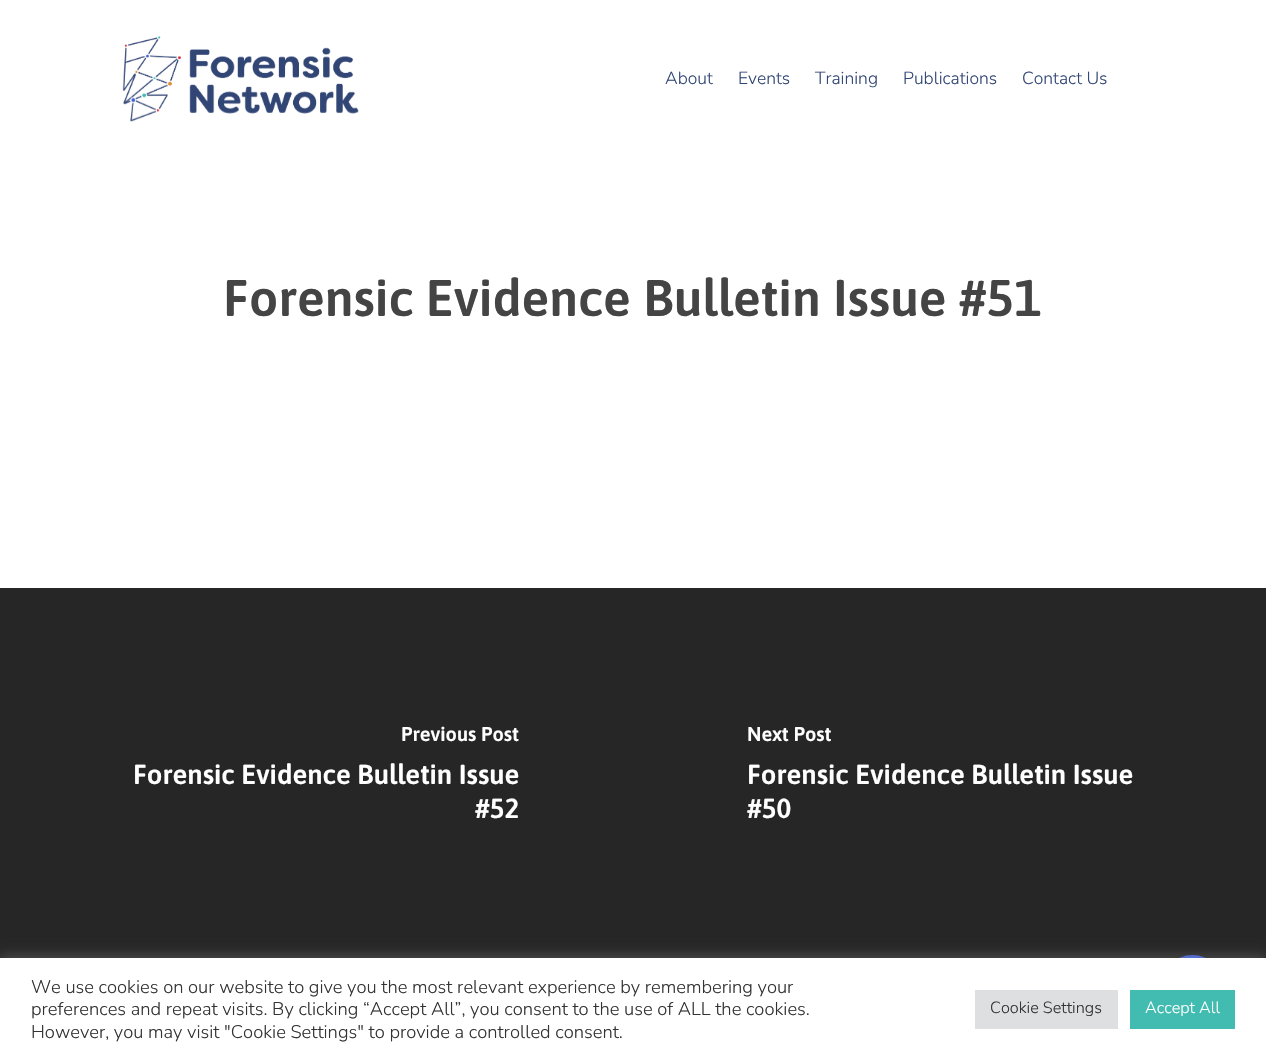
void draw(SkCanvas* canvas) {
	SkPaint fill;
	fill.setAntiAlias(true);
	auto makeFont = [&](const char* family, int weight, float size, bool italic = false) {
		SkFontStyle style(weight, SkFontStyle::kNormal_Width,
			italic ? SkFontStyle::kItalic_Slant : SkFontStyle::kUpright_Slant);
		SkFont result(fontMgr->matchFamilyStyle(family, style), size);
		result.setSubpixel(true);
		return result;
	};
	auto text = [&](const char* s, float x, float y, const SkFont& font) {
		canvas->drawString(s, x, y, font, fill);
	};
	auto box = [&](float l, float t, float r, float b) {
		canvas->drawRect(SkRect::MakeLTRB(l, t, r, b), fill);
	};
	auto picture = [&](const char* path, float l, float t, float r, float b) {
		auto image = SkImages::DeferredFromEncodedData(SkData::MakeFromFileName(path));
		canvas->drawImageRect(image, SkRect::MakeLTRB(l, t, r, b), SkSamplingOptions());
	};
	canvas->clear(0xFFFFFFFF);
	picture("image0.png", 122, 36, 359, 122);
	fill.setColor(0xFF262626);
	box(0, 588, 1266, 958);
	fill.setColor(0xFF4060D4);
	canvas->drawCircle(1192.5f, 986.5f, 31.5f, fill);
	fill.setColor(0x4DACABAB);
	fill.setMaskFilter(SkMaskFilter::MakeBlur(kNormal_SkBlurStyle, 6));
	canvas->drawRect(SkRect::MakeLTRB(0, 956, 1266, 1059), fill);
	fill.setMaskFilter(nullptr);
	fill.setColor(0xFFFFFFFF);
	box(0, 958, 1266, 1059);
	fill.setColor(0xFFDEDFE0);
	box(975, 990, 1118, 1029);
	fill.setColor(0xFF42BBB0);
	box(1130, 990, 1235, 1029);
	auto font1 = makeFont("Nunito", 300, 17.5f);
	fill.setColor(0xFF324675);
	text("About", 665, 84, font1);
	text("Events", 738, 84, font1);
	text("Training", 815, 84, font1);
	text("Publications", 903, 84, font1);
	text("Contact Us", 1022, 84, font1);
	auto font2 = makeFont("Asap", 600, 51.5f);
	fill.setColor(0xFF444444);
	text("Forensic Evidence Bulletin Issue #51", 223, 316, font2);
	auto font3 = makeFont("Asap", 600, 20);
	fill.setColor(0xFFFFFFFF);
	text("Previous Post", 401, 741, font3);
	auto font4 = makeFont("Asap", 600, 27.5f);
	text("Forensic Evidence Bulletin Issue", 133, 784, font4);
	text("#52", 475, 818, font4);
	text("Next Post", 747, 741, font3);
	text("Forensic Evidence Bulletin Issue", 747, 784, font4);
	text("#50", 747, 818, font4);
	auto font5 = makeFont("Nunito", 300, 18.35f);
	fill.setColor(0xFF333333);
	text("We use cookies on our website to give you the most relevant experience by remembering your", 31, 993, font5);
	text("preferences and repeat visits. By clicking “Accept All”, you consent to the use of ALL the cookies.", 31, 1015, font5);
	text("However, you may visit \"Cookie Settings\" to provide a controlled consent.", 31, 1038, font5);
	auto font6 = makeFont("Nunito", 300, 16.25f);
	text("Cookie Settings", 990, 1013, font6);
	fill.setColor(0xFFFFFFFF);
	text("Accept All", 1145, 1013, font6);
}
